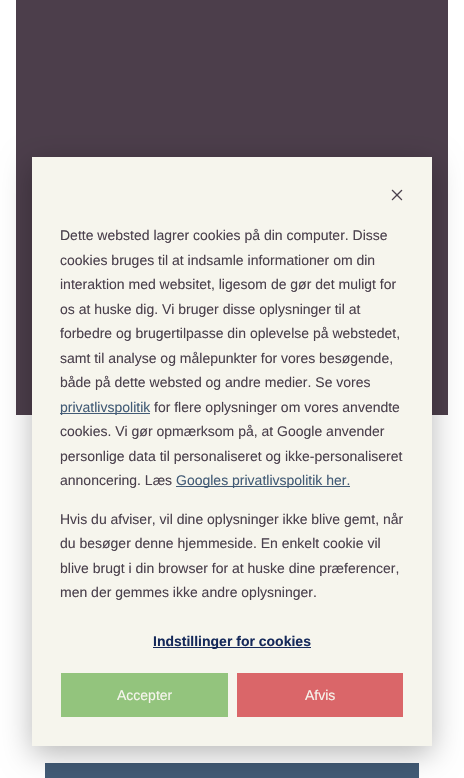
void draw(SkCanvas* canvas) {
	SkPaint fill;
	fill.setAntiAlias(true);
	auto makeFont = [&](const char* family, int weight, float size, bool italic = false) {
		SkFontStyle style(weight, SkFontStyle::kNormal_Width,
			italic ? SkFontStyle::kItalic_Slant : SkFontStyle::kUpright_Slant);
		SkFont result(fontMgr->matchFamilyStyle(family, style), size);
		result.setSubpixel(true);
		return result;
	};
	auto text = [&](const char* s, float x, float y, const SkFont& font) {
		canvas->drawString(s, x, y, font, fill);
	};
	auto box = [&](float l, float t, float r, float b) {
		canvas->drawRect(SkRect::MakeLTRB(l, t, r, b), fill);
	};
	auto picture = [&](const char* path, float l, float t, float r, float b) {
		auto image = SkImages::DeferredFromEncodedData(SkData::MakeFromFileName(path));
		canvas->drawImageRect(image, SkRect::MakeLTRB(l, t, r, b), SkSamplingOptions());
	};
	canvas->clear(0xFFFFFFFF);
	picture("image0.png", 16, 0, 448, 415);
	fill.setColor(0xFF425B76);
	box(45, 763, 419, 778);
	fill.setColor(0x47000000);
	fill.setMaskFilter(SkMaskFilter::MakeBlur(kNormal_SkBlurStyle, 14));
	canvas->drawRect(SkRect::MakeLTRB(32, 165, 432, 754), fill);
	fill.setMaskFilter(nullptr);
	fill.setColor(0xFFF6F5ED);
	box(32, 157, 432, 746);
	picture("image1.png", 391, 189, 403, 201);
	fill.setColor(0xFF425B76);
	box(60, 413, 150, 414);
	box(176, 486, 350, 487);
	fill.setColor(0xFF15295A);
	box(153, 647, 311, 648);
	fill.setColor(0xFF93C47D);
	box(61, 673, 228, 717);
	fill.setColor(0xFFDA6669);
	box(237, 673, 403, 717);
	auto font1 = makeFont("Liberation Sans", 400, 14);
	fill.setColor(0xFF4A404C);
	text("Dette websted lagrer cookies på din computer. Disse", 60, 240, font1);
	text("cookies bruges til at indsamle informationer om din", 60, 265, font1);
	text("interaktion med websitet, ligesom de gør det muligt for", 60, 289, font1);
	text("os at huske dig. Vi bruger disse oplysninger til at", 60, 314, font1);
	text("forbedre og brugertilpasse din oplevelse på webstedet,", 60, 338, font1);
	text("samt til analyse og målepunkter for vores besøgende,", 60, 363, font1);
	text("både på dette websted og andre medier. Se vores", 60, 387, font1);
	fill.setColor(0xFF425B76);
	text("privatlivspolitik", 60, 412, font1);
	fill.setColor(0xFF4A404C);
	text("for flere oplysninger om vores anvendte", 154, 412, font1);
	text("cookies. Vi gør opmærksom på, at Google anvender", 60, 436, font1);
	text("personlige data til personaliseret og ikke-personaliseret", 60, 461, font1);
	text("annoncering. Læs", 60, 485, font1);
	fill.setColor(0xFF425B76);
	text("Googles privatlivspolitik her.", 176, 485, font1);
	fill.setColor(0xFF4A404C);
	text("Hvis du afviser, vil dine oplysninger ikke blive gemt, når", 60, 524, font1);
	text("du besøger denne hjemmeside. En enkelt cookie vil", 60, 548, font1);
	text("blive brugt i din browser for at huske dine præferencer,", 60, 573, font1);
	text("men der gemmes ikke andre oplysninger.", 60, 597, font1);
	auto font2 = makeFont("Liberation Sans", 700, 14);
	fill.setColor(0xFF15295A);
	text("Indstillinger for cookies", 153, 646, font2);
	fill.setColor(0xFFF6F5ED);
	text("Accepter", 117, 700, font1);
	text("Afvis", 305, 700, font1);
}
